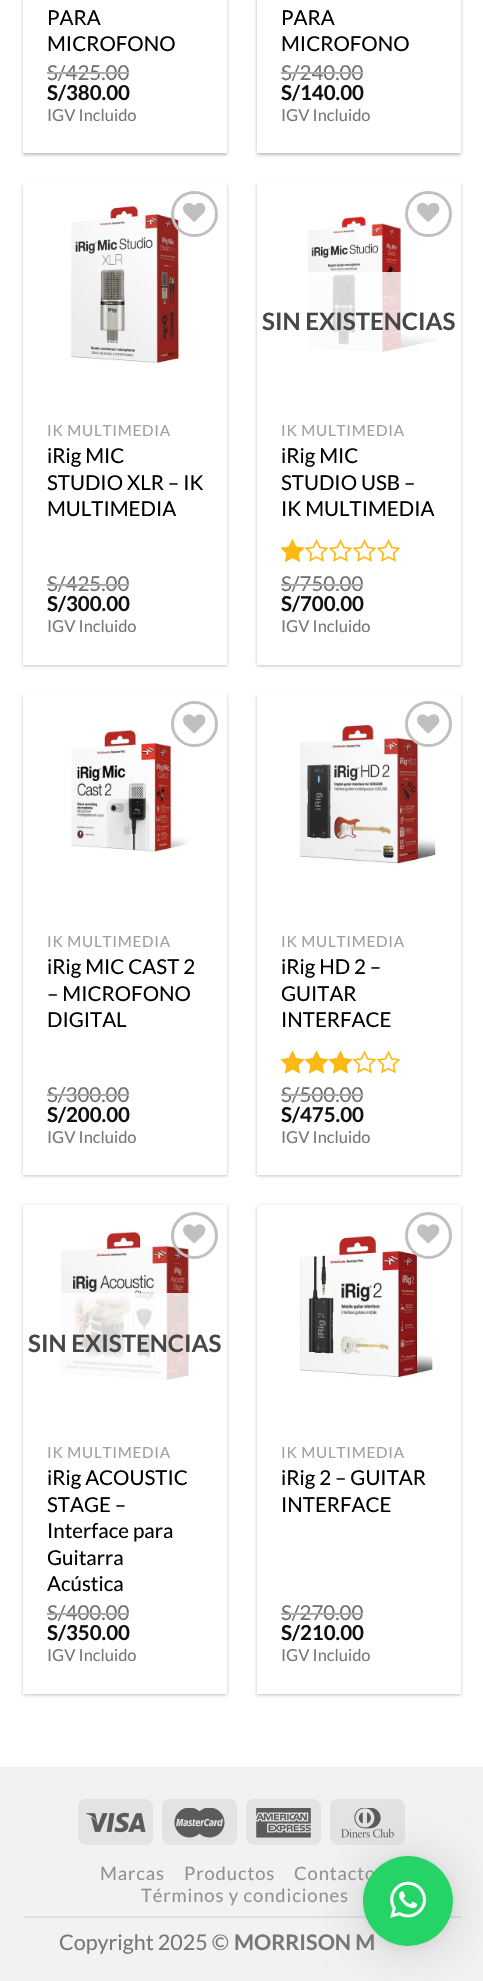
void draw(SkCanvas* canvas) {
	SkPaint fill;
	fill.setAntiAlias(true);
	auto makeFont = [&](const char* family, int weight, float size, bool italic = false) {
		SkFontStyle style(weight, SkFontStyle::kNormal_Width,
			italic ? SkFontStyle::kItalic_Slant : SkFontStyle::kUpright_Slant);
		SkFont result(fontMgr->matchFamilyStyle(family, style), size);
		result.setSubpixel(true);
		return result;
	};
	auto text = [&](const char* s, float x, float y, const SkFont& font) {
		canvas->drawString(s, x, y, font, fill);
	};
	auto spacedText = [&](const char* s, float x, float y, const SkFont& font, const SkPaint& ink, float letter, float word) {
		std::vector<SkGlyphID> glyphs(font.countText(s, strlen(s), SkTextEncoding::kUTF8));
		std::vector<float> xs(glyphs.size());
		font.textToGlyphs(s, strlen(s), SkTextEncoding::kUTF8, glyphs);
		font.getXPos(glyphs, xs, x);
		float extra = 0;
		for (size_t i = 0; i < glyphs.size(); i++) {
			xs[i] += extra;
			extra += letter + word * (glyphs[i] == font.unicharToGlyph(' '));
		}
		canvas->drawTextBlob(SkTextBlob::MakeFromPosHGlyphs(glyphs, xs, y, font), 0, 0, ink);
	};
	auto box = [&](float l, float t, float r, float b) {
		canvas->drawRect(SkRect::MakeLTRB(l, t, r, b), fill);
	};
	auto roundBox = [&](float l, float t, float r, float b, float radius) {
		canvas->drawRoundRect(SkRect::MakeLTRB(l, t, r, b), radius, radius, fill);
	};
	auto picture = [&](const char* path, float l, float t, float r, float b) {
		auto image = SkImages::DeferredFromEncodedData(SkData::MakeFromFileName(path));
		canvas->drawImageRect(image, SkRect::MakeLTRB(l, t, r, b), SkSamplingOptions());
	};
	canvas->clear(0xFFFFFFFF);
	fill.setColor(0x3D000000);
	fill.setMaskFilter(SkMaskFilter::MakeBlur(kNormal_SkBlurStyle, 1.5f));
	canvas->drawRect(SkRect::MakeLTRB(23, -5, 227, 155), fill);
	fill.setMaskFilter(nullptr);
	fill.setColor(0x1F000000);
	fill.setMaskFilter(SkMaskFilter::MakeBlur(kNormal_SkBlurStyle, 2));
	canvas->drawRect(SkRect::MakeLTRB(26, -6, 224, 152), fill);
	fill.setMaskFilter(nullptr);
	fill.setColor(0xFFFFFFFF);
	box(23, 0, 227, 153);
	fill.setColor(0x3D000000);
	fill.setMaskFilter(SkMaskFilter::MakeBlur(kNormal_SkBlurStyle, 1.5f));
	canvas->drawRect(SkRect::MakeLTRB(257, -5, 461, 155), fill);
	fill.setMaskFilter(nullptr);
	fill.setColor(0x1F000000);
	fill.setMaskFilter(SkMaskFilter::MakeBlur(kNormal_SkBlurStyle, 2));
	canvas->drawRect(SkRect::MakeLTRB(260, -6, 458, 152), fill);
	fill.setMaskFilter(nullptr);
	fill.setColor(0xFFFFFFFF);
	box(257, 0, 461, 153);
	fill.setColor(0x3D000000);
	fill.setMaskFilter(SkMaskFilter::MakeBlur(kNormal_SkBlurStyle, 1.5f));
	canvas->drawRect(SkRect::MakeLTRB(23, 185, 227, 666), fill);
	fill.setMaskFilter(nullptr);
	fill.setColor(0xFFFFFFFF);
	box(23, 183, 227, 665);
	picture("image0.png", 70, 206, 181, 363);
	fill.setStyle(SkPaint::kStroke_Style);
	fill.setStrokeWidth(3);
	fill.setColor(0xFFC0C0C0);
	canvas->drawRoundRect(SkRect::MakeLTRB(172.5f, 192.5f, 216.5f, 235.5f), 21.5f, 21.5f, fill);
	picture("image1.png", 183, 202, 206, 222);
	fill.setStyle(SkPaint::kFill_Style);
	fill.setColor(0x3D000000);
	fill.setMaskFilter(SkMaskFilter::MakeBlur(kNormal_SkBlurStyle, 1.5f));
	canvas->drawRect(SkRect::MakeLTRB(257, 185, 461, 666), fill);
	fill.setMaskFilter(nullptr);
	fill.setColor(0xFFFFFFFF);
	box(257, 183, 461, 665);
	picture("image2.png", 307, 216, 437, 353);
	fill.setStyle(SkPaint::kStroke_Style);
	fill.setColor(0xFFC0C0C0);
	canvas->drawRoundRect(SkRect::MakeLTRB(406.5f, 192.5f, 450.5f, 235.5f), 21.5f, 21.5f, fill);
	picture("image1.png", 417, 202, 440, 222);
	fill.setStyle(SkPaint::kFill_Style);
	fill.setColor(0xCFFFFFFF);
	box(307, 272, 437, 353);
	picture("image3.png", 281, 539, 401, 562);
	picture("image4.png", 281, 539, 305, 562);
	fill.setColor(0x3D000000);
	fill.setMaskFilter(SkMaskFilter::MakeBlur(kNormal_SkBlurStyle, 1.5f));
	canvas->drawRect(SkRect::MakeLTRB(23, 695, 227, 1176), fill);
	fill.setMaskFilter(nullptr);
	fill.setColor(0xFFFFFFFF);
	box(23, 693, 227, 1175);
	picture("image6.png", 71, 729, 190, 853);
	fill.setStyle(SkPaint::kStroke_Style);
	fill.setColor(0xFFC0C0C0);
	canvas->drawRoundRect(SkRect::MakeLTRB(172.5f, 702.5f, 216.5f, 745.5f), 21.5f, 21.5f, fill);
	picture("image5.png", 183, 714, 206, 734);
	fill.setStyle(SkPaint::kFill_Style);
	fill.setColor(0x3D000000);
	fill.setMaskFilter(SkMaskFilter::MakeBlur(kNormal_SkBlurStyle, 1.5f));
	canvas->drawRect(SkRect::MakeLTRB(257, 695, 461, 1176), fill);
	fill.setMaskFilter(nullptr);
	fill.setColor(0xFFFFFFFF);
	box(257, 693, 461, 1175);
	picture("image7.png", 299, 724, 436, 865);
	fill.setStyle(SkPaint::kStroke_Style);
	fill.setColor(0xFFC0C0C0);
	canvas->drawRoundRect(SkRect::MakeLTRB(406.5f, 702.5f, 450.5f, 745.5f), 21.5f, 21.5f, fill);
	picture("image5.png", 417, 714, 440, 734);
	picture("image8.png", 281, 1050, 401, 1074);
	picture("image9.png", 281, 1050, 354, 1074);
	fill.setStyle(SkPaint::kFill_Style);
	fill.setColor(0x3D000000);
	fill.setMaskFilter(SkMaskFilter::MakeBlur(kNormal_SkBlurStyle, 1.5f));
	canvas->drawRect(SkRect::MakeLTRB(23, 1206, 227, 1695), fill);
	fill.setMaskFilter(nullptr);
	fill.setColor(0xFFFFFFFF);
	box(23, 1205, 227, 1694);
	picture("image10.png", 60, 1231, 191, 1381);
	fill.setStyle(SkPaint::kStroke_Style);
	fill.setColor(0xFFC0C0C0);
	canvas->drawCircle(194.5f, 1235.5f, 22, fill);
	picture("image5.png", 183, 1224, 206, 1244);
	fill.setStyle(SkPaint::kFill_Style);
	fill.setColor(0xCFFFFFFF);
	box(60, 1293, 191, 1381);
	fill.setColor(0x3D000000);
	fill.setMaskFilter(SkMaskFilter::MakeBlur(kNormal_SkBlurStyle, 1.5f));
	canvas->drawRect(SkRect::MakeLTRB(257, 1206, 461, 1695), fill);
	fill.setMaskFilter(nullptr);
	fill.setColor(0xFFFFFFFF);
	box(257, 1205, 461, 1694);
	picture("image11.png", 299, 1235, 433, 1378);
	fill.setStyle(SkPaint::kStroke_Style);
	fill.setColor(0xFFC0C0C0);
	canvas->drawCircle(428.5f, 1235.5f, 22, fill);
	picture("image5.png", 417, 1224, 440, 1244);
	fill.setStyle(SkPaint::kFill_Style);
	fill.setColor(0xFFF2F2F2);
	box(0, 1767, 483, 1981);
	fill.setColor(0xFFE3E3E3);
	roundBox(78, 1799, 153, 1845, 8);
	picture("image12.png", 86, 1812, 146, 1833);
	roundBox(162, 1799, 237, 1845, 8);
	picture("image13.png", 174, 1808, 225, 1838);
	roundBox(246, 1799, 321, 1845, 8);
	picture("image14.png", 256, 1808, 311, 1838);
	roundBox(330, 1799, 405, 1845, 8);
	picture("image15.png", 341, 1808, 394, 1838);
	fill.setColor(0xFFE1E1E1);
	box(23, 1916, 461, 1918);
	fill.setColor(0x29000000);
	fill.setMaskFilter(SkMaskFilter::MakeBlur(kNormal_SkBlurStyle, 24));
	canvas->drawRoundRect(SkRect::MakeLTRB(363, 1859, 453, 1949), 45, 45, fill);
	fill.setMaskFilter(nullptr);
	fill.setColor(0x0F000000);
	fill.setMaskFilter(SkMaskFilter::MakeBlur(kNormal_SkBlurStyle, 4.5f));
	canvas->drawRoundRect(SkRect::MakeLTRB(363, 1857, 453, 1947), 45, 45, fill);
	fill.setMaskFilter(nullptr);
	auto font1 = makeFont("Lato", 400, 20.5f);
	fill.setColor(0xFF000000);
	text("PARA", 47, 25, font1);
	text("MICROFONO", 47, 51, font1);
	fill.setColor(0xFF707070);
	text("S/425.00", 47, 80, font1);
	fill.setColor(0xFFADADAD);
	box(47, 72, 129, 74);
	auto font2 = makeFont("Lato", 700, 20.5f);
	fill.setColor(0xFF111111);
	text("S/380.00", 47, 100, font2);
	auto font3 = makeFont("Lato", 400, 16.5f);
	fill.setColor(0xFF777777);
	text("IGV Incluido", 47, 121, font3);
	fill.setColor(0xFF000000);
	text("PARA", 281, 25, font1);
	text("MICROFONO", 281, 51, font1);
	fill.setColor(0xFF707070);
	text("S/240.00", 281, 80, font1);
	fill.setColor(0xFFADADAD);
	box(281, 72, 363, 74);
	fill.setColor(0xFF111111);
	text("S/140.00", 281, 100, font2);
	fill.setColor(0xFF777777);
	text("IGV Incluido", 281, 121, font3);
	auto font4 = makeFont("Lato", 400, 15.25f);
	fill.setColor(0xFFA0A0A0);
	spacedText("IK MULTIMEDIA", 47, 436, font4, fill, 0.75f, 0);
	fill.setColor(0xFF000000);
	text("iRig MIC", 47, 463, font1);
	text("STUDIO XLR – IK", 47, 490, font1);
	text("MULTIMEDIA", 47, 516, font1);
	fill.setColor(0xFF707070);
	text("S/425.00", 47, 591, font1);
	fill.setColor(0xFFADADAD);
	box(47, 584, 129, 586);
	fill.setColor(0xFF111111);
	text("S/300.00", 47, 611, font2);
	fill.setColor(0xFF777777);
	text("IGV Incluido", 47, 632, font3);
	auto font5 = makeFont("Lato", 700, 24);
	fill.setColor(0xFF474747);
	text("SIN EXISTENCIAS", 262, 330, font5);
	fill.setColor(0xFFA0A0A0);
	spacedText("IK MULTIMEDIA", 281, 436, font4, fill, 0.75f, 0);
	fill.setColor(0xFF000000);
	text("iRig MIC", 281, 463, font1);
	text("STUDIO USB –", 281, 490, font1);
	text("IK MULTIMEDIA", 281, 516, font1);
	fill.setColor(0xFF707070);
	text("S/750.00", 281, 591, font1);
	fill.setColor(0xFFADADAD);
	box(281, 584, 363, 586);
	fill.setColor(0xFF111111);
	text("S/700.00", 281, 611, font2);
	fill.setColor(0xFF777777);
	text("IGV Incluido", 281, 632, font3);
	fill.setColor(0xFFA0A0A0);
	spacedText("IK MULTIMEDIA", 47, 947, font4, fill, 0.75f, 0);
	fill.setColor(0xFF000000);
	text("iRig MIC CAST 2", 47, 974, font1);
	text("– MICROFONO", 47, 1001, font1);
	text("DIGITAL", 47, 1027, font1);
	fill.setColor(0xFF707070);
	text("S/300.00", 47, 1102, font1);
	fill.setColor(0xFFADADAD);
	box(47, 1094, 129, 1096);
	fill.setColor(0xFF111111);
	text("S/200.00", 47, 1122, font2);
	fill.setColor(0xFF777777);
	text("IGV Incluido", 47, 1143, font3);
	fill.setColor(0xFFA0A0A0);
	spacedText("IK MULTIMEDIA", 281, 947, font4, fill, 0.75f, 0);
	fill.setColor(0xFF000000);
	text("iRig HD 2 –", 281, 974, font1);
	text("GUITAR", 281, 1001, font1);
	text("INTERFACE", 281, 1027, font1);
	fill.setColor(0xFF707070);
	text("S/500.00", 281, 1102, font1);
	fill.setColor(0xFFADADAD);
	box(281, 1094, 363, 1096);
	fill.setColor(0xFF111111);
	text("S/475.00", 281, 1122, font2);
	fill.setColor(0xFF777777);
	text("IGV Incluido", 281, 1143, font3);
	fill.setColor(0xFF474747);
	text("SIN EXISTENCIAS", 28, 1352, font5);
	fill.setColor(0xFFA0A0A0);
	spacedText("IK MULTIMEDIA", 47, 1458, font4, fill, 0.75f, 0);
	fill.setColor(0xFF000000);
	text("iRig ACOUSTIC", 47, 1485, font1);
	text("STAGE –", 47, 1512, font1);
	text("Interface para", 47, 1538, font1);
	text("Guitarra", 47, 1565, font1);
	text("Acústica", 47, 1591, font1);
	fill.setColor(0xFF707070);
	text("S/400.00", 47, 1620, font1);
	fill.setColor(0xFFADADAD);
	box(47, 1613, 129, 1615);
	fill.setColor(0xFF111111);
	text("S/350.00", 47, 1640, font2);
	fill.setColor(0xFF777777);
	text("IGV Incluido", 47, 1661, font3);
	fill.setColor(0xFFA0A0A0);
	spacedText("IK MULTIMEDIA", 281, 1458, font4, fill, 0.75f, 0);
	fill.setColor(0xFF000000);
	text("iRig 2 – GUITAR", 281, 1485, font1);
	text("INTERFACE", 281, 1512, font1);
	fill.setColor(0xFF707070);
	text("S/270.00", 281, 1620, font1);
	fill.setColor(0xFFADADAD);
	box(281, 1613, 363, 1615);
	fill.setColor(0xFF111111);
	text("S/210.00", 281, 1640, font2);
	fill.setColor(0xFF777777);
	text("IGV Incluido", 281, 1661, font3);
	auto font6 = makeFont("Lato", 400, 18.4f);
	fill.setColor(0xFF919191);
	spacedText("Marcas", 100, 1880, font6, fill, 0.9f, 0);
	spacedText("Productos", 184, 1880, font6, fill, 0.9f, 0);
	spacedText("Contacto", 294, 1880, font6, fill, 0.9f, 0);
	spacedText("Términos y condiciones", 141, 1902, font6, fill, 0.9f, 0);
	auto font7 = makeFont("Lato", 400, 21.5f);
	fill.setColor(0xFF777777);
	text("Copyright 2025 ©", 59, 1950, font7);
	auto font8 = makeFont("Lato", 700, 21.5f);
	text("MORRISON M", 234, 1950, font8);
	fill.setColor(0xFF25D366);
	canvas->drawCircle(408, 1901, 45, fill);
	picture("image16.png", 390, 1881, 426, 1918);
}
